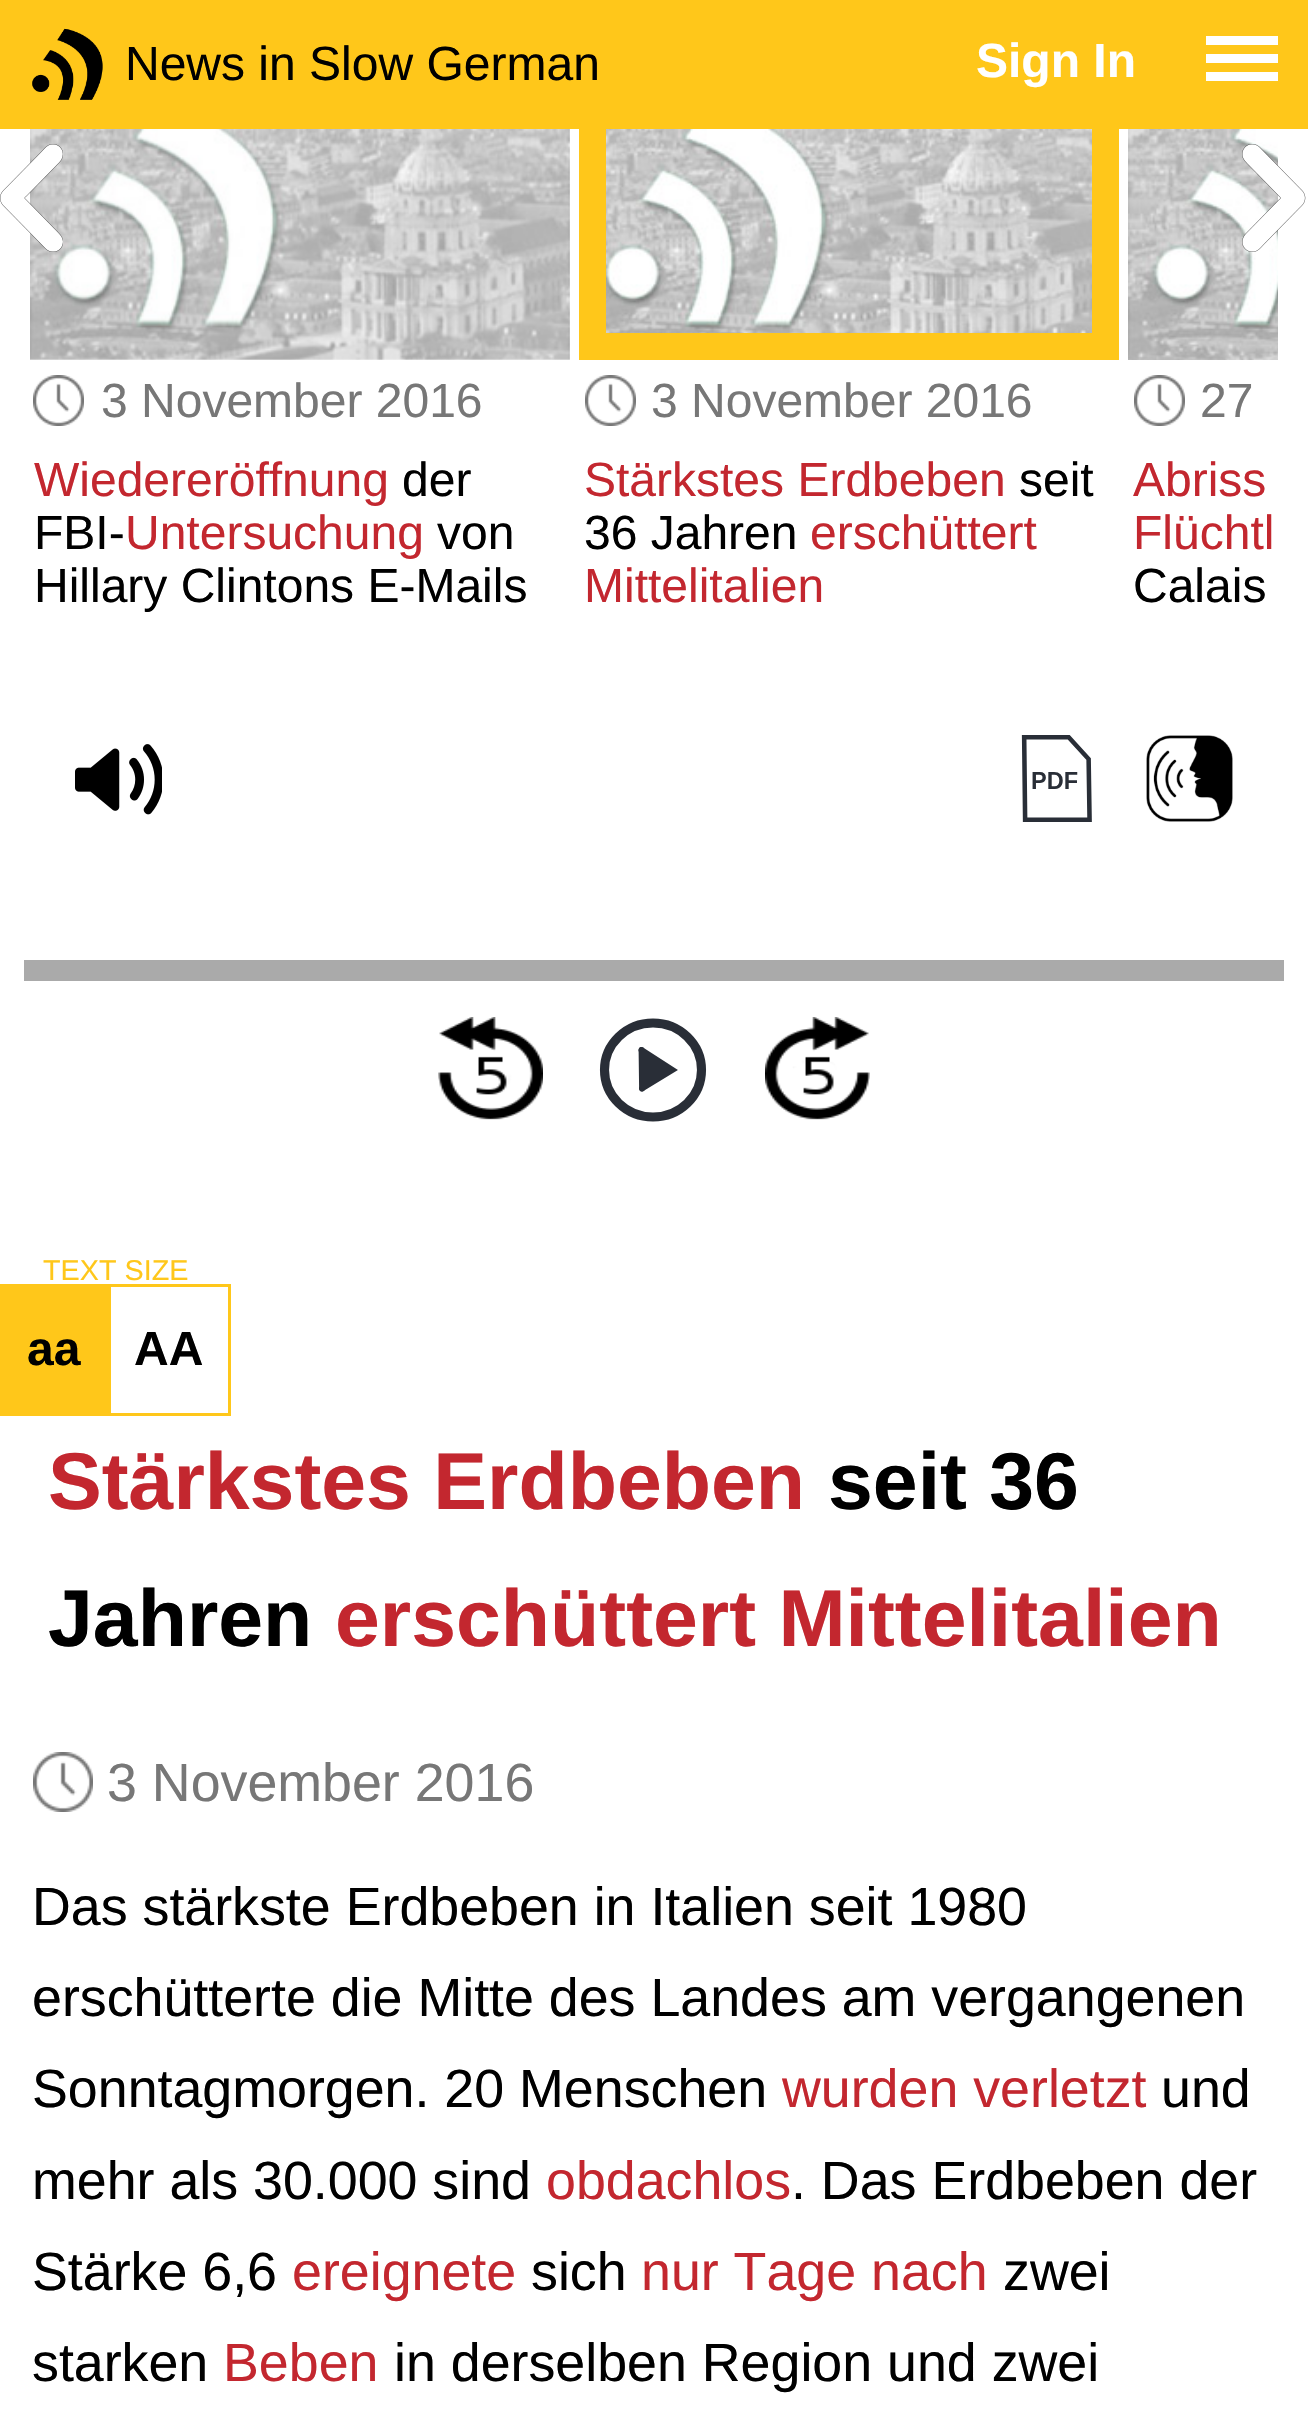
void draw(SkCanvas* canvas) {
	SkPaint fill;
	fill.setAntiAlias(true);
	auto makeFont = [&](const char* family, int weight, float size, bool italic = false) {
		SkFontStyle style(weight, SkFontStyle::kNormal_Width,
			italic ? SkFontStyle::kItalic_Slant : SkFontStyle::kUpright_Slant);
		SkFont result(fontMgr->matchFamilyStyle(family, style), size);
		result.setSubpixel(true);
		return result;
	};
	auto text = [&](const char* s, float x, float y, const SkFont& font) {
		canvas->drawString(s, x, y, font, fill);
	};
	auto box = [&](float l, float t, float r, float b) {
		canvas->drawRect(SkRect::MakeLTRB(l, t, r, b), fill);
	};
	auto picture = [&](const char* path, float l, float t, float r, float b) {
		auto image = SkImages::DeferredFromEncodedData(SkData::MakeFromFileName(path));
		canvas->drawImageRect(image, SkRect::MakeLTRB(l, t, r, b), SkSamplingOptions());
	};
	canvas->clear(0xFFFFFFFF);
	picture("image5.png", 606, 129, 1092, 333);
	fill.setStyle(SkPaint::kStroke_Style);
	fill.setStrokeWidth(27);
	fill.setColor(0xFFFFC71A);
	canvas->drawRect(SkRect::MakeLTRB(592.5f, 73.5f, 1105.5f, 346.5f), fill);
	fill.setStyle(SkPaint::kFill_Style);
	box(0, 0, 1308, 129);
	picture("image0.png", 32, 28, 103, 100);
	fill.setColor(0xFFFFFFFF);
	box(1206, 36, 1278, 45);
	box(1206, 54, 1278, 63);
	box(1206, 72, 1278, 81);
	fill.setColor(0xFFFAFAFA);
	box(30, 129, 570, 360);
	picture("image3.png", 30, 129, 570, 360);
	picture("image1.png", 0, 144, 63, 252);
	picture("image6.png", 1128, 129, 1278, 360);
	picture("image2.png", 1242, 144, 1306, 252);
	picture("image4.png", 33, 375, 84, 426);
	picture("image4.png", 585, 375, 636, 426);
	picture("image7.png", 1134, 375, 1185, 426);
	picture("image8.png", 75, 744, 162, 815);
	picture("image9.png", 1021, 735, 1092, 822);
	picture("image10.png", 1146, 735, 1233, 822);
	fill.setColor(0xFFAAAAAA);
	box(24, 960, 1284, 981);
	picture("image11.png", 438, 1017, 543, 1120);
	fill.setStyle(SkPaint::kStroke_Style);
	fill.setStrokeWidth(9.1f);
	fill.setColor(0xFF292E37);
	canvas->drawOval(SkRect::MakeLTRB(604.5f, 1023, 701.5f, 1117), fill);
	fill.setStrokeWidth(5.8f);
	fill.setStrokeCap(SkPaint::kRound_Cap);
	canvas->drawPath(SkPathBuilder().moveTo(641.5f, 1050).lineTo(642, 1088.5f).detach(), fill);
	fill.setStyle(SkPaint::kFill_Style);
	canvas->drawPath(SkPathBuilder().moveTo(642, 1088.5f).lineTo(672.5f, 1070).lineTo(641.5f, 1050).detach(), fill);
	fill.setStyle(SkPaint::kStroke_Style);
	canvas->drawPath(SkPathBuilder().moveTo(642, 1088.5f).lineTo(672.5f, 1070).lineTo(641.5f, 1050).detach(), fill);
	picture("image12.png", 765, 1017, 870, 1120);
	fill.setStyle(SkPaint::kFill_Style);
	fill.setColor(0xFFFFC71A);
	box(0, 1284, 108, 1416);
	fill.setStyle(SkPaint::kStroke_Style);
	fill.setStrokeWidth(3);
	fill.setStrokeCap(SkPaint::kButt_Cap);
	canvas->drawRect(SkRect::MakeLTRB(109.5f, 1285.5f, 229.5f, 1414.5f), fill);
	picture("image13.png", 33, 1752, 93, 1812);
	auto font1 = makeFont("Liberation Sans", 400, 48);
	fill.setStyle(SkPaint::kFill_Style);
	fill.setColor(0xFF000000);
	text("News in Slow German", 125, 80, font1);
	auto font2 = makeFont("Liberation Sans", 700, 48);
	fill.setColor(0xFFFFFFFF);
	text("Sign In", 976, 77, font2);
	fill.setColor(0xFF777777);
	text("3 November 2016", 101, 417, font1);
	fill.setColor(0xFFC3272F);
	text("Wiedereröffnung", 34, 496, font1);
	fill.setColor(0xFF000000);
	text("der", 402, 496, font1);
	text("FBI-", 34, 549, font1);
	fill.setColor(0xFFC3272F);
	text("Untersuchung", 125, 549, font1);
	fill.setColor(0xFF000000);
	text("von", 437, 549, font1);
	text("Hillary Clintons E-Mails", 34, 602, font1);
	fill.setColor(0xFF777777);
	text("3 November 2016", 651, 417, font1);
	fill.setColor(0xFFC3272F);
	text("Stärkstes Erdbeben", 584, 496, font1);
	fill.setColor(0xFF000000);
	text("seit", 1019, 496, font1);
	text("36 Jahren", 584, 549, font1);
	fill.setColor(0xFFC3272F);
	text("erschüttert", 810, 549, font1);
	text("Mittelitalien", 584, 602, font1);
	fill.setColor(0xFF777777);
	text("27", 1200, 417, font1);
	fill.setColor(0xFFC3272F);
	text("Abriss", 1133, 496, font1);
	text("Flüchtl", 1133, 549, font1);
	fill.setColor(0xFF000000);
	text("Calais", 1133, 602, font1);
	auto font3 = makeFont("Liberation Sans", 400, 28.75f);
	fill.setColor(0xFFFFC71A);
	text("TEXT SIZE", 43, 1280, font3);
	fill.setColor(0xFF000000);
	text("aa", 27, 1365, font2);
	text("AA", 134, 1365, font2);
	auto font4 = makeFont("Liberation Sans", 700, 80.6f);
	fill.setColor(0xFFC3272F);
	text("Stärkstes Erdbeben", 48, 1509, font4);
	fill.setColor(0xFF000000);
	text("seit 36", 828, 1509, font4);
	text("Jahren", 48, 1646, font4);
	fill.setColor(0xFFC3272F);
	text("erschüttert Mittelitalien", 335, 1646, font4);
	auto font5 = makeFont("Liberation Sans", 400, 53.75f);
	fill.setColor(0xFF777777);
	text("3 November 2016", 107, 1801, font5);
	fill.setColor(0xFF000000);
	text("Das stärkste Erdbeben in Italien seit 1980", 32, 1925, font5);
	text("erschütterte die Mitte des Landes am vergangenen", 32, 2016, font5);
	text("Sonntagmorgen. 20 Menschen", 32, 2107, font5);
	fill.setColor(0xFFC3272F);
	text("wurden verletzt", 782, 2107, font5);
	fill.setColor(0xFF000000);
	text("und", 1161, 2107, font5);
	text("mehr als 30.000 sind", 32, 2199, font5);
	fill.setColor(0xFFC3272F);
	text("obdachlos", 546, 2199, font5);
	fill.setColor(0xFF000000);
	text(". Das Erdbeben der", 791, 2199, font5);
	text("Stärke 6,6", 32, 2290, font5);
	fill.setColor(0xFFC3272F);
	text("ereignete", 292, 2290, font5);
	fill.setColor(0xFF000000);
	text("sich", 531, 2290, font5);
	fill.setColor(0xFFC3272F);
	text("nur Tage nach", 641, 2290, font5);
	fill.setColor(0xFF000000);
	text("zwei", 1003, 2290, font5);
	text("starken", 32, 2381, font5);
	fill.setColor(0xFFC3272F);
	text("Beben", 223, 2381, font5);
	fill.setColor(0xFF000000);
	text("in derselben Region und zwei", 394, 2381, font5);
}
